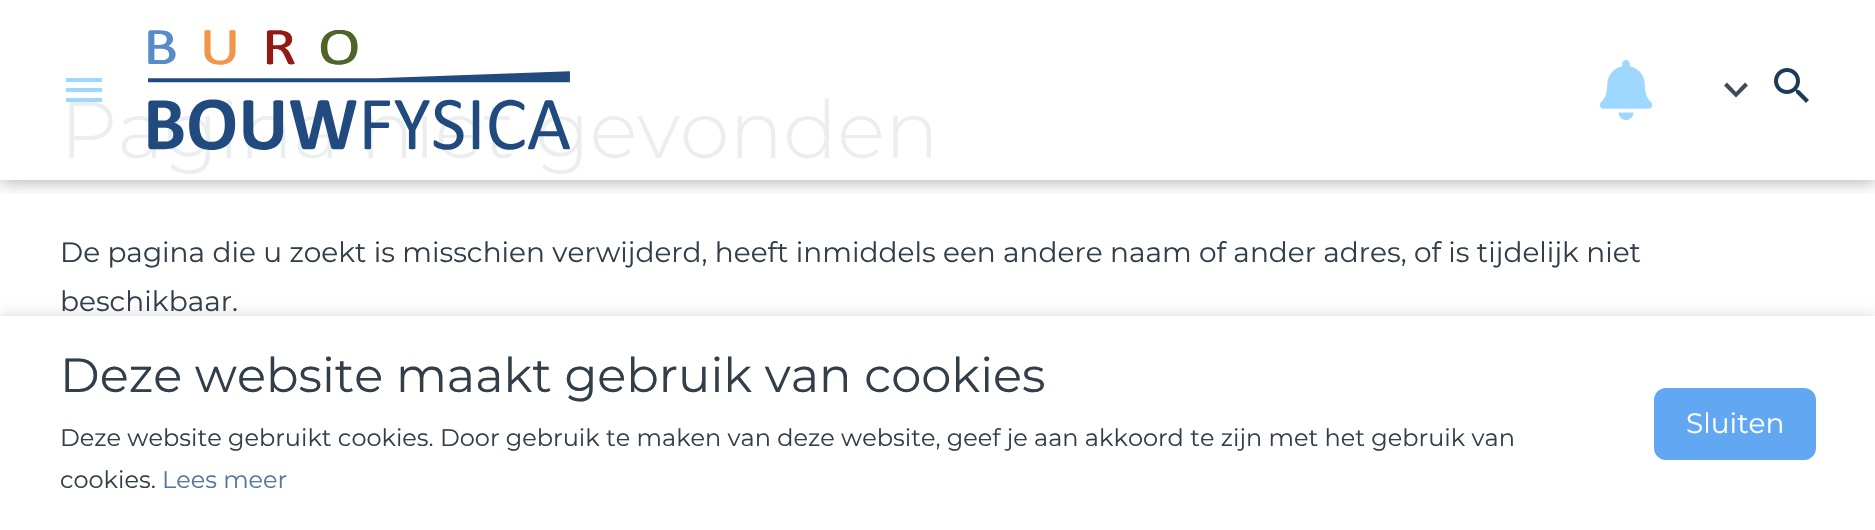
void draw(SkCanvas* canvas) {
	SkPaint fill;
	fill.setAntiAlias(true);
	auto makeFont = [&](const char* family, int weight, float size, bool italic = false) {
		SkFontStyle style(weight, SkFontStyle::kNormal_Width,
			italic ? SkFontStyle::kItalic_Slant : SkFontStyle::kUpright_Slant);
		SkFont result(fontMgr->matchFamilyStyle(family, style), size);
		result.setSubpixel(true);
		return result;
	};
	auto text = [&](const char* s, float x, float y, const SkFont& font) {
		canvas->drawString(s, x, y, font, fill);
	};
	auto box = [&](float l, float t, float r, float b) {
		canvas->drawRect(SkRect::MakeLTRB(l, t, r, b), fill);
	};
	auto picture = [&](const char* path, float l, float t, float r, float b) {
		auto image = SkImages::DeferredFromEncodedData(SkData::MakeFromFileName(path));
		canvas->drawImageRect(image, SkRect::MakeLTRB(l, t, r, b), SkSamplingOptions());
	};
	canvas->clear(0xFFFFFFFF);
	canvas->save();
	canvas->clipRect(SkRect::MakeLTRB(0, 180, 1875, 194));
	fill.setColor(0x4D000000);
	fill.setMaskFilter(SkMaskFilter::MakeBlur(kNormal_SkBlurStyle, 8));
	canvas->drawRect(SkRect::MakeLTRB(0, 2, 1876, 182), fill);
	fill.setMaskFilter(nullptr);
	canvas->restore();
	picture("image1.png", 1599, 60, 1653, 120);
	fill.setColor(0xFF3E4C59);
	canvas->drawPath(SkPathBuilder().moveTo(1724, 85.5f).lineTo(1727, 82.5f).lineTo(1736, 92).lineTo(1745, 82.5f).lineTo(1748, 85.5f).lineTo(1736, 97.5f).close().detach(), fill);
	picture("image2.png", 1774, 68, 1809, 103);
	fill.setColor(0x33000000);
	fill.setMaskFilter(SkMaskFilter::MakeBlur(kNormal_SkBlurStyle, 8));
	canvas->drawRect(SkRect::MakeLTRB(0, 318, 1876, 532), fill);
	fill.setMaskFilter(nullptr);
	fill.setColor(0xFFFFFFFF);
	box(0, 316, 1875, 530);
	fill.setColor(0xFF61A7F2);
	canvas->drawRoundRect(SkRect::MakeLTRB(1655, 389, 1815, 459), 11, 11, fill);
	fill.setStyle(SkPaint::kStroke_Style);
	fill.setStrokeWidth(2);
	canvas->drawRoundRect(SkRect::MakeLTRB(1655, 389, 1815, 459), 11, 11, fill);
	auto font1 = makeFont("Montserrat", 300, 80);
	fill.setStyle(SkPaint::kFill_Style);
	fill.setColor(0xFFEBEDEF);
	text("Pagina niet gevonden", 60, 158, font1);
	picture("image0.png", 148, 30, 570, 150);
	fill.setColor(0xFF9ED7FF);
	canvas->drawPath(SkPathBuilder().moveTo(66, 102).lineTo(102, 102).lineTo(102, 98).lineTo(66, 98).close().moveTo(66, 92).lineTo(102, 92).lineTo(102, 88).lineTo(66, 88).close().moveTo(66, 78).lineTo(66, 82).lineTo(102, 82).lineTo(102, 78).close().detach(), fill);
	auto font2 = makeFont("Montserrat", 400, 28);
	fill.setColor(0xFF323F4B);
	text("De pagina die u zoekt is misschien verwijderd, heeft inmiddels een andere naam of ander adres, of is tijdelijk niet", 60, 262, font2);
	text("beschikbaar.", 60, 311, font2);
	auto font3 = makeFont("Montserrat", 400, 48);
	text("Deze website maakt gebruik van cookies", 60, 392, font3);
	auto font4 = makeFont("Montserrat", 400, 24);
	text("Deze website gebruikt cookies. Door gebruik te maken van deze website, geef je aan akkoord te zijn met het gebruik van", 60, 446, font4);
	text("cookies.", 60, 488, font4);
	fill.setColor(0xFF54779C);
	text("Lees meer", 162, 488, font4);
	fill.setColor(0xFFFFFFFF);
	text("Sluiten", 1686, 433, font2);
}
